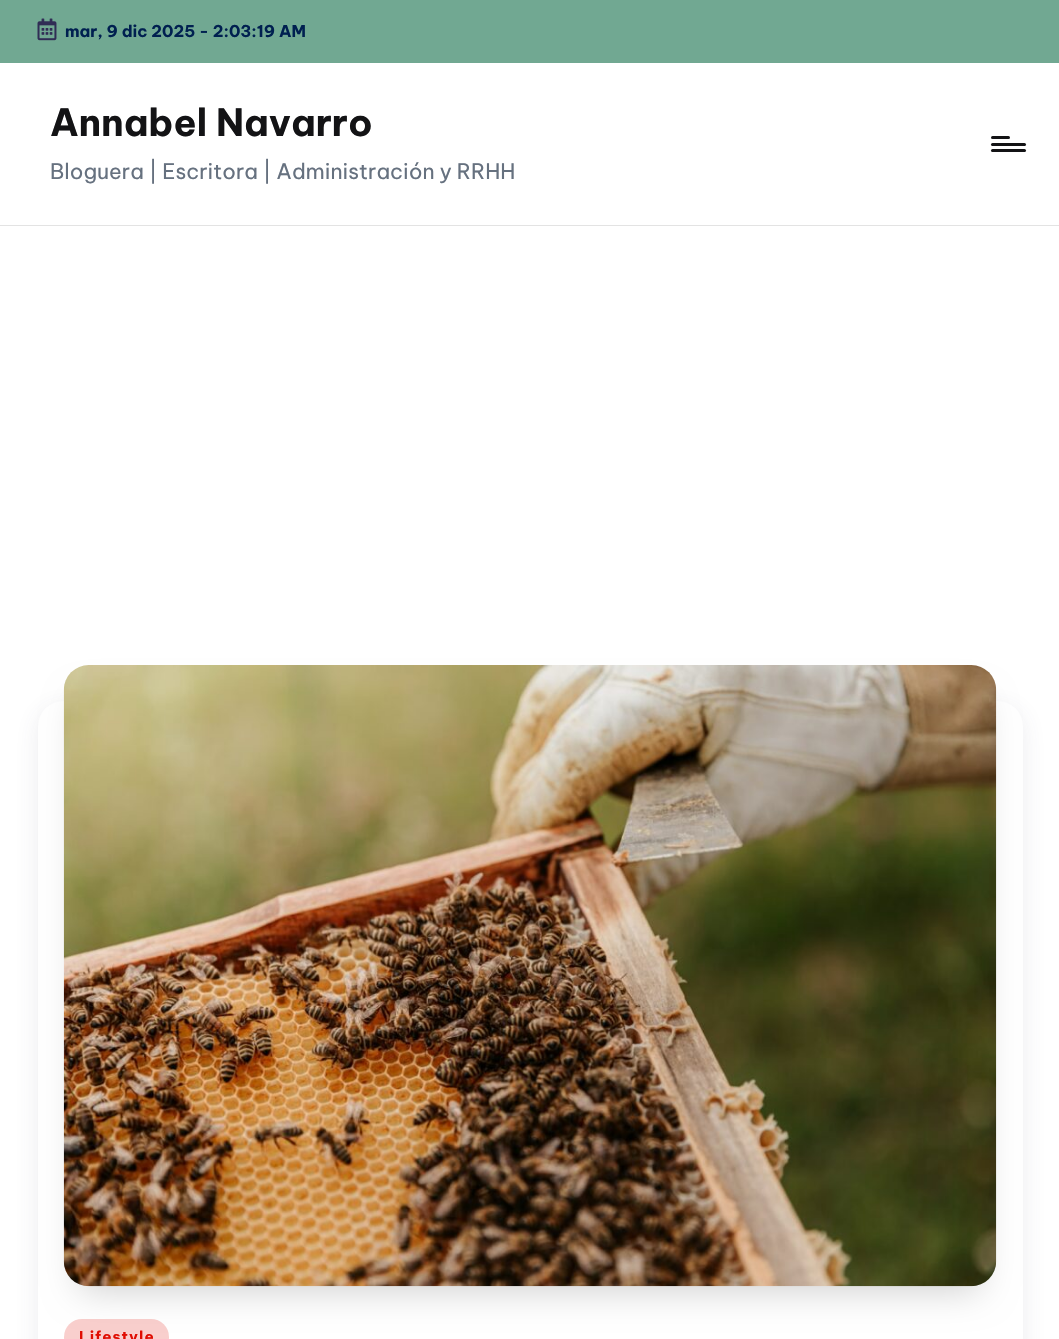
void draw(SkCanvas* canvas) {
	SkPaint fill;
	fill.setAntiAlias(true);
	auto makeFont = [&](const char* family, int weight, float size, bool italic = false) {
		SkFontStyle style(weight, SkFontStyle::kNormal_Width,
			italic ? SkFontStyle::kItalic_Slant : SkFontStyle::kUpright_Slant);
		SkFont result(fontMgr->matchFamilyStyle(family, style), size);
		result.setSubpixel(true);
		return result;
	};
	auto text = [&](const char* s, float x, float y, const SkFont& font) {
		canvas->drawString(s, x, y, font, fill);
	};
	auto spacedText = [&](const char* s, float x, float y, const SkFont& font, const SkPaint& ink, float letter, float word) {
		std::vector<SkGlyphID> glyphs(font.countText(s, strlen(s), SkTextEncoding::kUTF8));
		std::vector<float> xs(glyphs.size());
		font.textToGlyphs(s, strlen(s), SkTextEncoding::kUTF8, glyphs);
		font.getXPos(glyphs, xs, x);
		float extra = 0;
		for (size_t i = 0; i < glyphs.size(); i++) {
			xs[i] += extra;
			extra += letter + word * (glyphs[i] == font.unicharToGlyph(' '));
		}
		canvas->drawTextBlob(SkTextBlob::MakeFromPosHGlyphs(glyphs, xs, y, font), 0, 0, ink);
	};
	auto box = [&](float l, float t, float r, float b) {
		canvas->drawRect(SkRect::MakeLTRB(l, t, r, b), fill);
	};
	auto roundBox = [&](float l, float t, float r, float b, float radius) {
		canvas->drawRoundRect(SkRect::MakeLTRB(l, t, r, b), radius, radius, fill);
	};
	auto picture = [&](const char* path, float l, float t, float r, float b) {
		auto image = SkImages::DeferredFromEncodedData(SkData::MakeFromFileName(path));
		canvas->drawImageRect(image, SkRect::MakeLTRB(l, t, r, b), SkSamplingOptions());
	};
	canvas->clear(0xFFFFFFFF);
	fill.setColor(0xFF71A892);
	box(0, 0, 1059, 63);
	picture("image0.png", 37, 18, 57, 41);
	fill.setColor(0xFFE3E3E3);
	box(0, 225, 1059, 226);
	fill.setColor(0xFF131315);
	roundBox(991, 143, 1026, 146, 1.5f);
	roundBox(991, 136, 1010, 139, 1.5f);
	roundBox(991, 149, 1026, 152, 1.5f);
	fill.setColor(0x1A454360);
	fill.setMaskFilter(SkMaskFilter::MakeBlur(kNormal_SkBlurStyle, 12.5f));
	canvas->drawRoundRect(SkRect::MakeLTRB(38, 708, 1023, 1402), 25, 25, fill);
	fill.setMaskFilter(nullptr);
	fill.setColor(0xFFFFFFFF);
	roundBox(38, 701, 1023, 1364, 25);
	fill.setColor(0xFFF9CFCD);
	roundBox(64, 1319, 169, 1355, 18);
	fill.setColor(0x2E000000);
	fill.setMaskFilter(SkMaskFilter::MakeBlur(kNormal_SkBlurStyle, 17.5f));
	canvas->drawRoundRect(SkRect::MakeLTRB(79, 700, 981, 1291), 10, 10, fill);
	fill.setMaskFilter(nullptr);
	picture("image1.png", 63, 665, 997, 1287);
	auto font1 = makeFont("Be Vietnam Pro", 700, 16.25f);
	fill.setColor(0xFF002050);
	text("mar, 9 dic 2025 - 2:03:19 AM", 65, 37, font1);
	auto font2 = makeFont("Be Vietnam Pro", 700, 37.5f);
	fill.setColor(0xFF131315);
	text("Annabel Navarro", 50, 136, font2);
	auto font3 = makeFont("Be Vietnam Pro", 400, 21.25f);
	fill.setColor(0xFF66717F);
	text("Bloguera | Escritora | Administración y RRHH", 50, 179, font3);
	auto font4 = makeFont("Be Vietnam Pro", 700, 15);
	fill.setColor(0xFFE00D02);
	spacedText("Lifestyle", 79, 1342, font4, fill, 1, 0);
}
